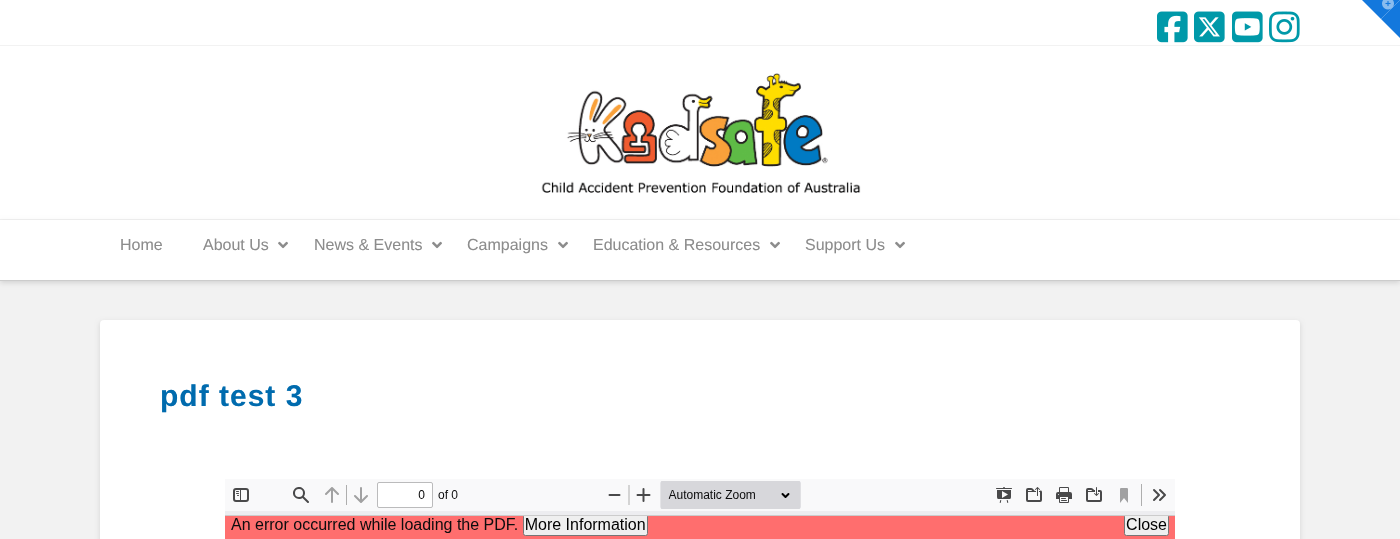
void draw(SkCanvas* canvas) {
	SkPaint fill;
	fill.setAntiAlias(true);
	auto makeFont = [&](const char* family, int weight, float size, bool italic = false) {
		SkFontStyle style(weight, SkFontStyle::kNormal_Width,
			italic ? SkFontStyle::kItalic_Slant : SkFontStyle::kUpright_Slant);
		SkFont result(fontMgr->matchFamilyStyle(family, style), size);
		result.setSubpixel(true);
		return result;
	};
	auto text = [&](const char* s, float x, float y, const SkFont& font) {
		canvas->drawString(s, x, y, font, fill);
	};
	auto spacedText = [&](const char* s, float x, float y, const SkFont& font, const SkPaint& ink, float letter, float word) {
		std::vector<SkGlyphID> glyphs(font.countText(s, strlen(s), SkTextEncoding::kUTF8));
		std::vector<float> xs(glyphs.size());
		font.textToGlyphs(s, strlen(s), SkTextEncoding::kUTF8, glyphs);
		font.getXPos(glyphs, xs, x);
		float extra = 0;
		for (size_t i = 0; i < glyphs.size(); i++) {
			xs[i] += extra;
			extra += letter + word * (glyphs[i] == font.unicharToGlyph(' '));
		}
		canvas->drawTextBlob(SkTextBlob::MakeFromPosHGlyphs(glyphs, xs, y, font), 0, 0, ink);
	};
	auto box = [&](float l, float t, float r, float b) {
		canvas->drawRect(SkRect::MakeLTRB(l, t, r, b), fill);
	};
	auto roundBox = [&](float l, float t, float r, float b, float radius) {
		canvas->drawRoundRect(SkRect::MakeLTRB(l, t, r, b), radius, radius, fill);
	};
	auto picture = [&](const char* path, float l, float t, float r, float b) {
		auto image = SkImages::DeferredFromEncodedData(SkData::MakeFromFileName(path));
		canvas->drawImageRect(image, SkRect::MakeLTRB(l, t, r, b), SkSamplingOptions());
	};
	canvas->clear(0xFFF2F2F2);
	fill.setColor(0xFFFFFFFF);
	box(0, 0, 1400, 45);
	fill.setColor(0xFF1378DD);
	canvas->drawPath(SkPathBuilder().moveTo(1362, 0).lineTo(1400, 0).lineTo(1381, 19).close().detach(), fill);
	canvas->drawPath(SkPathBuilder().moveTo(1400, 0).lineTo(1400, 38).lineTo(1381, 19).close().detach(), fill);
	picture("image0.png", 1382, 0, 1394, 10);
	picture("image1.png", 1157, 11, 1188, 43);
	picture("image2.png", 1194, 11, 1225, 43);
	picture("image3.png", 1232, 11, 1263, 43);
	picture("image4.png", 1269, 11, 1300, 43);
	fill.setColor(0xFFFFFFFF);
	box(0, 46, 1400, 219);
	picture("image5.png", 541, 73, 861, 193);
	fill.setColor(0x21000000);
	fill.setMaskFilter(SkMaskFilter::MakeBlur(kNormal_SkBlurStyle, 2.5f));
	canvas->drawRect(SkRect::MakeLTRB(0, 222, 1400, 283), fill);
	fill.setMaskFilter(nullptr);
	fill.setColor(0xFFFFFFFF);
	box(0, 220, 1400, 280);
	fill.setColor(0xFFCCCCCC);
	box(0, 280, 1400, 281);
	picture("image6.png", 278, 241, 288, 249);
	picture("image6.png", 432, 241, 442, 249);
	picture("image6.png", 558, 241, 568, 249);
	picture("image6.png", 770, 241, 780, 249);
	picture("image6.png", 895, 241, 905, 249);
	fill.setColor(0x21000000);
	fill.setMaskFilter(SkMaskFilter::MakeBlur(kNormal_SkBlurStyle, 2.5f));
	canvas->drawRoundRect(SkRect::MakeLTRB(100, 322, 1300, 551), 4, 4, fill);
	fill.setMaskFilter(nullptr);
	fill.setColor(0xFFFFFFFF);
	roundBox(100, 320, 1300, 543, 4);
	picture("image7.png", 225, 479, 1175, 539);
	auto font1 = makeFont("Liberation Sans", 400, 16);
	fill.setColor(0xFF8C8C8C);
	text("Home", 120, 250, font1);
	text("About Us", 203, 250, font1);
	text("News & Events", 314, 250, font1);
	text("Campaigns", 467, 250, font1);
	text("Education & Resources", 593, 250, font1);
	text("Support Us", 805, 250, font1);
	auto font2 = makeFont("Liberation Sans", 700, 30);
	fill.setColor(0xFF006BAE);
	spacedText("pdf test 3", 160, 406, font2, fill, 1, 0);
}
